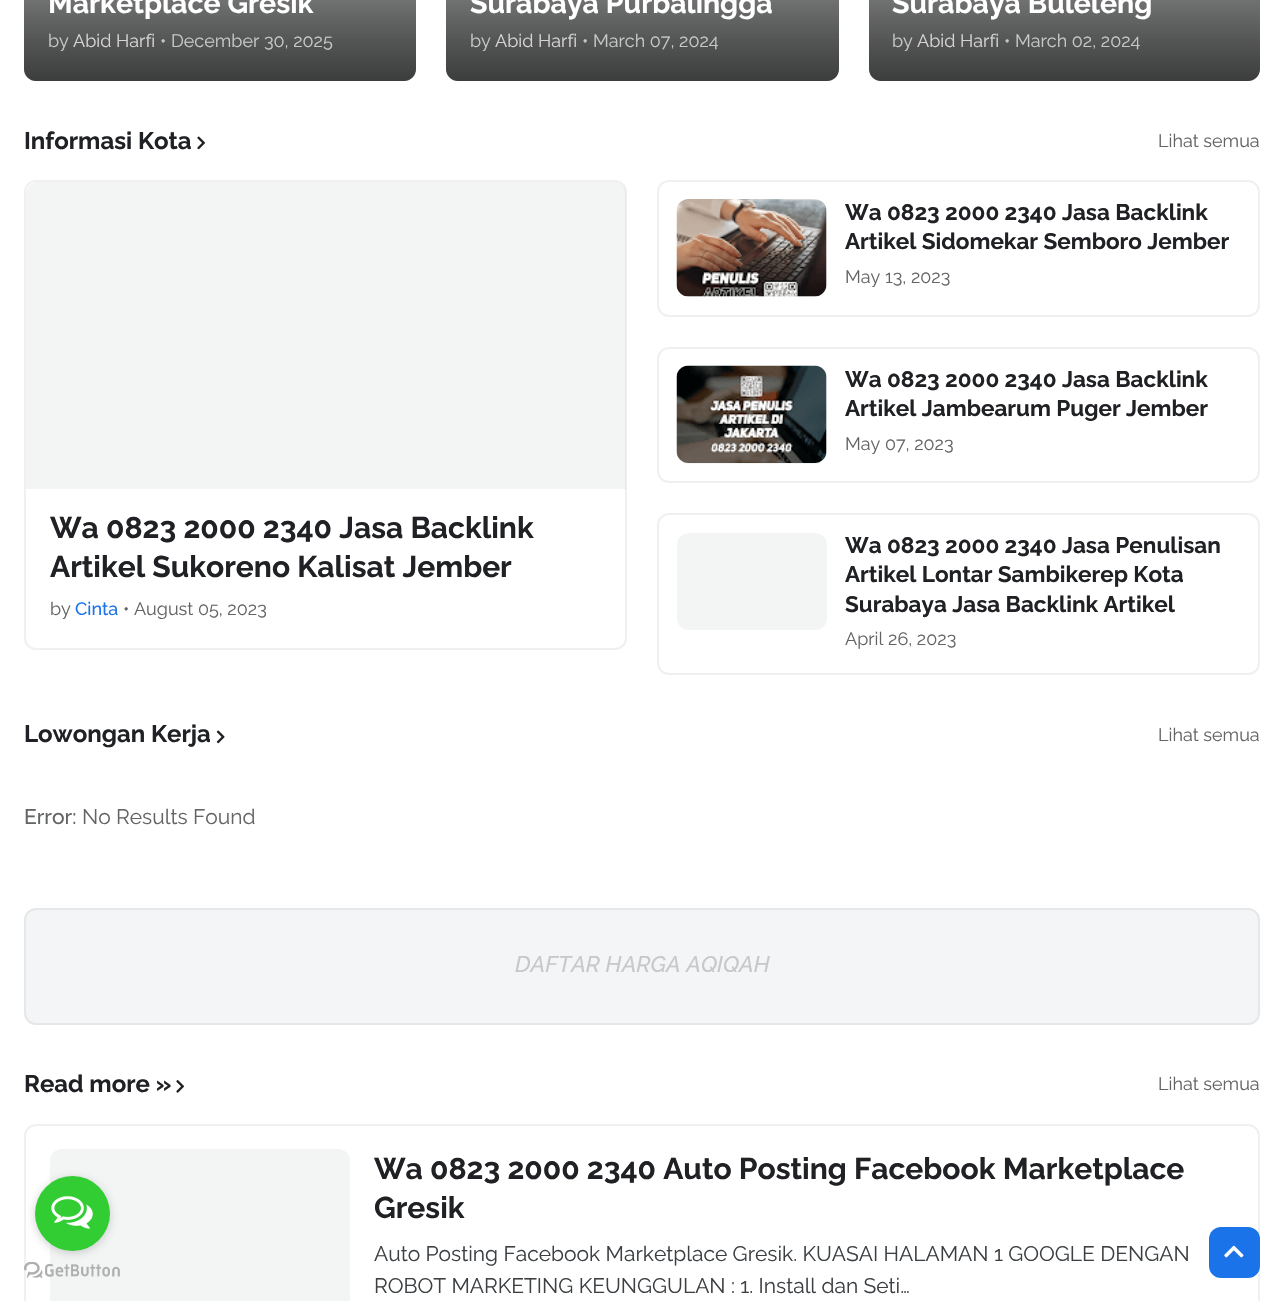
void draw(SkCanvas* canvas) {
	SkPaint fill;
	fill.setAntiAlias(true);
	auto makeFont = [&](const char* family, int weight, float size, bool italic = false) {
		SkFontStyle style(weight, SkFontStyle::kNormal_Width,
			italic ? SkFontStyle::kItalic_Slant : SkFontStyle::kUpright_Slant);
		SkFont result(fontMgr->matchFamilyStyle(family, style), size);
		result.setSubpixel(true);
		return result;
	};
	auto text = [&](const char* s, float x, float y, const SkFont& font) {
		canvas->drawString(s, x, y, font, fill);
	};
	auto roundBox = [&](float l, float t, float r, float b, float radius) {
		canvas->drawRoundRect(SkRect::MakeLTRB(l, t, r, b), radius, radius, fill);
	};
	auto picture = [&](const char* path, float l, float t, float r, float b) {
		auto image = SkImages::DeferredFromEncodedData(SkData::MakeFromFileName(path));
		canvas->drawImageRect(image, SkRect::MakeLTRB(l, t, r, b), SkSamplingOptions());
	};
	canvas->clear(0xFFFFFFFF);
	fill.setColor(0xFFF3F5F5);
	roundBox(24, -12, 416, 81, 12);
	{
		const SkColor colors[] = {0x00000000, 0x80000000};
		const float stops[] = {0.3f, 1};
		const SkPoint ends[] = {{220, -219}, {220, 81}};
		fill.setShader(SkGradientShader::MakeLinear(ends, colors, stops, 2, SkTileMode::kClamp));
		fill.setAlpha(255);
	}
	roundBox(24, -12, 416, 81, 12);
	{
		const SkColor colors[] = {0x00000000, 0x80000000};
		const float stops[] = {0, 1};
		const SkPoint ends[] = {{220, -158}, {220, 81}};
		fill.setShader(SkGradientShader::MakeLinear(ends, colors, stops, 2, SkTileMode::kClamp));
		fill.setAlpha(255);
	}
	canvas->drawPath(SkPathBuilder().moveTo(24, -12).lineTo(416, -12).lineTo(416, 69).cubicTo(416, 75.5f, 410.5f, 81, 404, 81).lineTo(36, 81).cubicTo(29.5f, 81, 24, 75.5f, 24, 69).close().detach(), fill);
	fill.setShader(nullptr);
	fill.setColor(0xFFF3F5F5);
	roundBox(446, -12, 839, 81, 12);
	{
		const SkColor colors[] = {0x00000000, 0x80000000};
		const float stops[] = {0.3f, 1};
		const SkPoint ends[] = {{642, -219}, {642, 81}};
		fill.setShader(SkGradientShader::MakeLinear(ends, colors, stops, 2, SkTileMode::kClamp));
		fill.setAlpha(255);
	}
	roundBox(446, -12, 839, 81, 12);
	{
		const SkColor colors[] = {0x00000000, 0x80000000};
		const float stops[] = {0, 1};
		const SkPoint ends[] = {{642, -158}, {642, 81}};
		fill.setShader(SkGradientShader::MakeLinear(ends, colors, stops, 2, SkTileMode::kClamp));
		fill.setAlpha(255);
	}
	canvas->drawPath(SkPathBuilder().moveTo(446, -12).lineTo(839, -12).lineTo(839, 69).cubicTo(839, 75.5f, 833.5f, 81, 827, 81).lineTo(458, 81).cubicTo(451.5f, 81, 446, 75.5f, 446, 69).close().detach(), fill);
	fill.setShader(nullptr);
	fill.setColor(0xFFF3F5F5);
	roundBox(869, -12, 1260, 81, 12);
	{
		const SkColor colors[] = {0x00000000, 0x80000000};
		const float stops[] = {0.3f, 1};
		const SkPoint ends[] = {{1064, -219}, {1064, 81}};
		fill.setShader(SkGradientShader::MakeLinear(ends, colors, stops, 2, SkTileMode::kClamp));
		fill.setAlpha(255);
	}
	roundBox(869, -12, 1260, 81, 12);
	{
		const SkColor colors[] = {0x00000000, 0x80000000};
		const float stops[] = {0, 1};
		const SkPoint ends[] = {{1064, -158}, {1064, 81}};
		fill.setShader(SkGradientShader::MakeLinear(ends, colors, stops, 2, SkTileMode::kClamp));
		fill.setAlpha(255);
	}
	canvas->drawPath(SkPathBuilder().moveTo(869, -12).lineTo(1260, -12).lineTo(1260, 69).cubicTo(1260, 75.5f, 1254.5f, 81, 1248, 81).lineTo(881, 81).cubicTo(874.5f, 81, 869, 75.5f, 869, 69).close().detach(), fill);
	picture("image0.png", 197, 136, 205, 150);
	fill.setStyle(SkPaint::kStroke_Style);
	fill.setStrokeWidth(2);
	fill.setShader(nullptr);
	fill.setColor(0xFFF0F0F0);
	canvas->drawRoundRect(SkRect::MakeLTRB(25, 181, 626, 649), 11, 11, fill);
	fill.setStyle(SkPaint::kFill_Style);
	fill.setColor(0x1F9BAAAF);
	canvas->drawPath(SkPathBuilder().moveTo(38, 182).lineTo(614, 182).cubicTo(620.5f, 182, 626, 187.5f, 626, 194).lineTo(626, 489).lineTo(26, 489).lineTo(26, 194).cubicTo(26, 187.5f, 31.5f, 182, 38, 182).close().detach(), fill);
	fill.setStyle(SkPaint::kStroke_Style);
	fill.setColor(0xFFF0F0F0);
	canvas->drawRoundRect(SkRect::MakeLTRB(658, 181, 1259, 316), 11, 11, fill);
	fill.setStyle(SkPaint::kFill_Style);
	fill.setColor(0xFFF3F5F5);
	roundBox(677, 200, 827, 297, 12);
	picture("image1.png", 676, 199, 827, 297);
	fill.setStyle(SkPaint::kStroke_Style);
	fill.setColor(0xFFF0F0F0);
	canvas->drawRoundRect(SkRect::MakeLTRB(658, 348, 1259, 482), 11, 11, fill);
	fill.setStyle(SkPaint::kFill_Style);
	fill.setColor(0xFFF3F5F5);
	roundBox(677, 366, 827, 464, 12);
	picture("image2.png", 676, 365, 827, 463);
	fill.setStyle(SkPaint::kStroke_Style);
	fill.setColor(0xFFF0F0F0);
	canvas->drawRoundRect(SkRect::MakeLTRB(658, 514, 1259, 674), 11, 11, fill);
	fill.setStyle(SkPaint::kFill_Style);
	fill.setColor(0xFFF3F5F5);
	roundBox(677, 533, 827, 630, 12);
	picture("image3.png", 216, 730, 225, 744);
	fill.setColor(0xFFF3F5F6);
	roundBox(24, 908, 1260, 1025, 12);
	fill.setStyle(SkPaint::kStroke_Style);
	fill.setColor(0x269B9B9B);
	canvas->drawRoundRect(SkRect::MakeLTRB(25, 909, 1259, 1024), 11, 11, fill);
	picture("image4.png", 176, 1080, 184, 1093);
	fill.setColor(0xFFF0F0F0);
	canvas->drawRoundRect(SkRect::MakeLTRB(25, 1125, 1259, 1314), 11, 11, fill);
	fill.setStyle(SkPaint::kFill_Style);
	fill.setColor(0xFFF3F5F5);
	roundBox(50, 1149, 350, 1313, 12);
	picture("image6.png", 24, 1262, 120, 1278);
	fill.setColor(0x66888888);
	fill.setMaskFilter(SkMaskFilter::MakeBlur(kNormal_SkBlurStyle, 5));
	canvas->drawRoundRect(SkRect::MakeLTRB(35, 1178, 110, 1253), 37.5f, 37.5f, fill);
	fill.setMaskFilter(nullptr);
	fill.setColor(0xFF32CD32);
	canvas->drawCircle(72.5f, 1213.5f, 37.5f, fill);
	picture("image5.png", 51, 1196, 93, 1229);
	fill.setColor(0xFF1A73E8);
	roundBox(1209, 1227, 1260, 1278, 12);
	picture("image7.png", 1224, 1245, 1244, 1258);
	auto font1 = makeFont("Raleway", 700, 28.5f);
	fill.setColor(0xFFFFFFFF);
	text("Marketplace Gresik", 48, 13, font1);
	auto font2 = makeFont("Raleway", 400, 18);
	fill.setColor(0xFFC7C8C9);
	text("by", 48, 47, font2);
	fill.setColor(0xFFD5D5D5);
	text("Abid Harfi", 73, 47, font2);
	fill.setColor(0xFFC7C8C9);
	text("• December 30, 2025", 160, 47, font2);
	fill.setColor(0xFFFFFFFF);
	text("Surabaya Purbalingga", 470, 13, font1);
	fill.setColor(0xFFC7C8C9);
	text("by", 470, 47, font2);
	fill.setColor(0xFFD5D5D5);
	text("Abid Harfi", 495, 47, font2);
	fill.setColor(0xFFC7C8C9);
	text("• March 07, 2024", 582, 47, font2);
	fill.setColor(0xFFFFFFFF);
	text("Surabaya Buleleng", 892, 13, font1);
	fill.setColor(0xFFC7C8C9);
	text("by", 892, 47, font2);
	fill.setColor(0xFFD5D5D5);
	text("Abid Harfi", 917, 47, font2);
	fill.setColor(0xFFC7C8C9);
	text("• March 02, 2024", 1004, 47, font2);
	auto font3 = makeFont("Raleway", 700, 24);
	fill.setColor(0xFF202124);
	text("Informasi Kota", 24, 149, font3);
	fill.setColor(0xFF636466);
	text("Lihat semua", 1158, 147, font2);
	auto font4 = makeFont("Raleway", 700, 30);
	fill.setColor(0xFF202124);
	text("Wa 0823 2000 2340 Jasa Backlink", 50, 538, font4);
	text("Artikel Sukoreno Kalisat Jember", 50, 577, font4);
	fill.setColor(0xFF636466);
	text("by", 50, 615, font2);
	auto font5 = makeFont("Raleway", 500, 18);
	fill.setColor(0xFF1A73E8);
	text("Cinta", 75, 615, font5);
	fill.setColor(0xFF636466);
	text("• August 05, 2023", 123, 615, font2);
	auto font6 = makeFont("Raleway", 700, 22.5f);
	fill.setColor(0xFF202124);
	text("Wa 0823 2000 2340 Jasa Backlink", 845, 220, font6);
	text("Artikel Sidomekar Semboro Jember", 845, 249, font6);
	fill.setColor(0xFF636466);
	text("May 13, 2023", 845, 283, font2);
	fill.setColor(0xFF202124);
	text("Wa 0823 2000 2340 Jasa Backlink", 845, 387, font6);
	text("Artikel Jambearum Puger Jember", 845, 416, font6);
	fill.setColor(0xFF636466);
	text("May 07, 2023", 845, 450, font2);
	fill.setColor(0xFF202124);
	text("Wa 0823 2000 2340 Jasa Penulisan", 845, 553, font6);
	text("Artikel Lontar Sambikerep Kota", 845, 582, font6);
	text("Surabaya Jasa Backlink Artikel", 845, 612, font6);
	fill.setColor(0xFF636466);
	text("April 26, 2023", 845, 645, font2);
	fill.setColor(0xFF202124);
	text("Lowongan Kerja", 24, 742, font3);
	fill.setColor(0xFF636466);
	text("Lihat semua", 1158, 741, font2);
	auto font7 = makeFont("Raleway", 500, 21);
	text("Error:", 24, 824, font7);
	auto font8 = makeFont("Raleway", 400, 21);
	text("No Results Found", 82, 824, font8);
	auto font9 = makeFont("Raleway", 500, 22.5f, true);
	fill.setColor(0xFFC7C8C9);
	text("DAFTAR HARGA AQIQAH", 515, 972, font9);
	fill.setColor(0xFF202124);
	text("Read more »", 24, 1092, font3);
	fill.setColor(0xFF636466);
	text("Lihat semua", 1158, 1090, font2);
	fill.setColor(0xFF202124);
	text("Wa 0823 2000 2340 Auto Posting Facebook Marketplace", 374, 1179, font4);
	text("Gresik", 374, 1218, font4);
	fill.setColor(0xFF3C4043);
	text("Auto Posting Facebook Marketplace Gresik. KUASAI HALAMAN 1 GOOGLE DENGAN", 374, 1261, font8);
	text("ROBOT MARKETING KEUNGGULAN : 1. Install dan Seti…", 374, 1293, font8);
}
